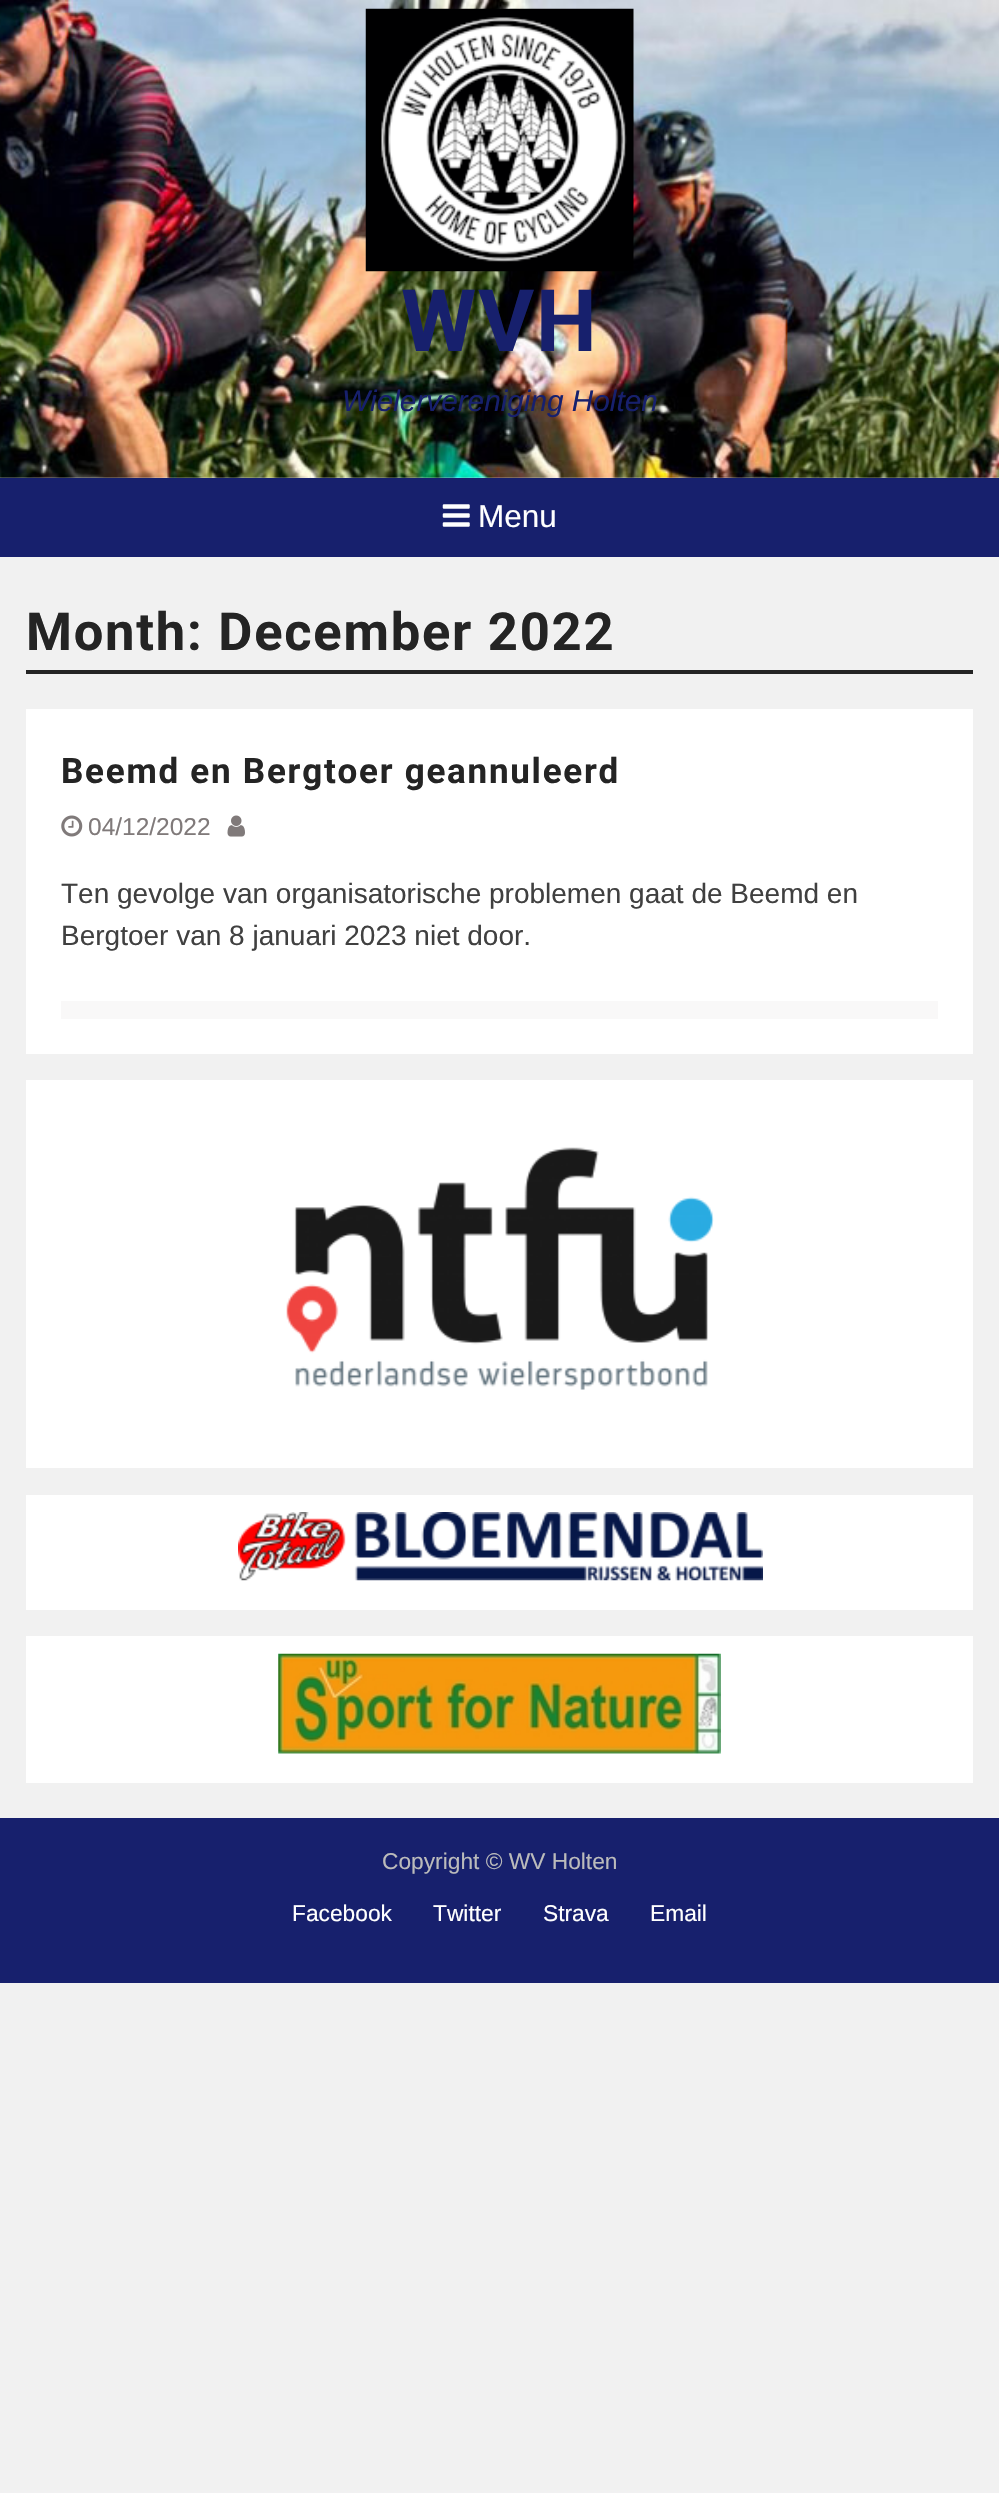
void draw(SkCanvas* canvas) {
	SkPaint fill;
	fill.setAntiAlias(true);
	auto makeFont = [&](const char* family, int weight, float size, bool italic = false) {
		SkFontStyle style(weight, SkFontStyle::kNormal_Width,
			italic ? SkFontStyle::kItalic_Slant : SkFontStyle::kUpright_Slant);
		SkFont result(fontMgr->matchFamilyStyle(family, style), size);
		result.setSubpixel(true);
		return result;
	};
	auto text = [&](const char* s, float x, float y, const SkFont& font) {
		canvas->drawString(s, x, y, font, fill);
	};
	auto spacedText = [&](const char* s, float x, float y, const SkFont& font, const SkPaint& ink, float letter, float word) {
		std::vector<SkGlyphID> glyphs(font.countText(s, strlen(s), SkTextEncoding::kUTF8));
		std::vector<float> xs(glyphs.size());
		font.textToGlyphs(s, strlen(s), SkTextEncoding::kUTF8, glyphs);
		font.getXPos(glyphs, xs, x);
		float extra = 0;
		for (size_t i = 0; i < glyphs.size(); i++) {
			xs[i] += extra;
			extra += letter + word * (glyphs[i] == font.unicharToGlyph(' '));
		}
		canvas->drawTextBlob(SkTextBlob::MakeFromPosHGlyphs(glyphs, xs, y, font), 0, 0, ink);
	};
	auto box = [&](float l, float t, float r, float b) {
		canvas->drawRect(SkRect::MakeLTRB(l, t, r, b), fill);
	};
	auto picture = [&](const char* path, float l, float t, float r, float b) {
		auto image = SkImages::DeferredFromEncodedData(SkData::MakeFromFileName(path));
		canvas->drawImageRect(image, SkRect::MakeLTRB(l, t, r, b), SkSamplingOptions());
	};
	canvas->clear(0xFFF1F1F1);
	picture("image0.png", 0, 0, 999, 478);
	picture("image1.png", 365, 8, 634, 272);
	fill.setColor(0xFF17206D);
	box(0, 478, 999, 557);
	picture("image2.png", 442, 504, 470, 527);
	fill.setColor(0xFF242424);
	box(26, 670, 973, 674);
	fill.setColor(0xFFFFFFFF);
	box(26, 709, 973, 1054);
	picture("image3.png", 61, 815, 83, 837);
	picture("image4.png", 227, 815, 245, 837);
	fill.setColor(0xFFF9F8F8);
	box(61, 1001, 938, 1019);
	fill.setColor(0xFFFFFFFF);
	box(26, 1080, 973, 1468);
	picture("image5.png", 286, 1147, 714, 1390);
	box(26, 1495, 973, 1610);
	picture("image6.png", 238, 1512, 763, 1581);
	box(26, 1636, 973, 1783);
	picture("image7.png", 278, 1653, 721, 1754);
	fill.setColor(0xFF17206D);
	box(0, 1818, 999, 1983);
	auto font1 = makeFont("Roboto", 700, 86);
	spacedText("WVH", 401, 351, font1, fill, 1.75f, 0);
	auto font2 = makeFont("Liberation Sans", 400, 29.75f, true);
	text("Wielervereniging Holten", 342, 411, font2);
	auto font3 = makeFont("Liberation Sans", 400, 31.5f);
	fill.setColor(0xFFFFFFFF);
	text("Menu", 478, 527, font3);
	auto font4 = makeFont("Roboto", 700, 52.5f);
	fill.setColor(0xFF242424);
	spacedText("Month: December 2022", 26, 650, font4, fill, 1.75f, 0);
	auto font5 = makeFont("Roboto", 700, 35);
	spacedText("Beemd en Bergtoer geannuleerd", 61, 783, font5, fill, 1.75f, 0);
	auto font6 = makeFont("Liberation Sans", 400, 24.5f);
	fill.setColor(0xFF807A7A);
	text("04/12/2022", 88, 835, font6);
	auto font7 = makeFont("Liberation Sans", 400, 28);
	fill.setColor(0xFF404040);
	text("Ten gevolge van organisatorische problemen gaat de Beemd en", 61, 903, font7);
	text("Bergtoer van 8 januari 2023 niet door.", 61, 945, font7);
	auto font8 = makeFont("Liberation Sans", 400, 22.75f);
	fill.setColor(0xFFBBBBBB);
	text("Copyright © WV Holten", 382, 1869, font8);
	fill.setColor(0xFFFFFFFF);
	text("Facebook", 292, 1921, font8);
	text("Twitter", 433, 1921, font8);
	text("Strava", 543, 1921, font8);
	text("Email", 650, 1921, font8);
}
